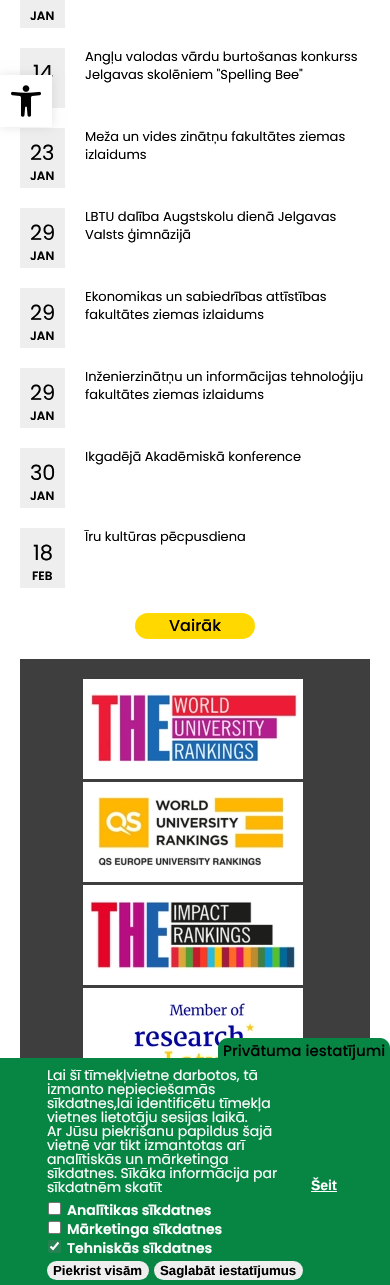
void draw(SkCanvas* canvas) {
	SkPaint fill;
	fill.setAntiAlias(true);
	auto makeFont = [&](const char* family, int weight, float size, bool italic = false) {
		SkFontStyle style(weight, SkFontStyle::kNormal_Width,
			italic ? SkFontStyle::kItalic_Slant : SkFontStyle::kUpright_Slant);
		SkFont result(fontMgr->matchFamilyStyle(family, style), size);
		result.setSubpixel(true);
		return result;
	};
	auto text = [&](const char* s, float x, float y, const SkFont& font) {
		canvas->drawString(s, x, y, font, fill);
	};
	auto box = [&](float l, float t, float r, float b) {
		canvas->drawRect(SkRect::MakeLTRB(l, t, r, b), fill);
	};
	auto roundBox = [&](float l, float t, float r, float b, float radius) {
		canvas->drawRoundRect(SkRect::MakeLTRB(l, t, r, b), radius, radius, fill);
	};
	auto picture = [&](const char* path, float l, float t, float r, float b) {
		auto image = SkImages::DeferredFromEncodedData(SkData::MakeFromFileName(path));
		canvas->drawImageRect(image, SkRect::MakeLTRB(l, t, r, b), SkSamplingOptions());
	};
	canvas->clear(0xFFFFFFFF);
	fill.setColor(0xFFEEEEEE);
	box(20, 0, 65, 28);
	box(20, 48, 65, 108);
	box(20, 128, 65, 188);
	box(20, 208, 65, 268);
	box(20, 288, 65, 348);
	box(20, 368, 65, 428);
	box(20, 448, 65, 508);
	box(20, 528, 65, 588);
	fill.setColor(0xFFFFD800);
	roundBox(135, 613, 255, 639, 13);
	fill.setColor(0xFF3E3E3E);
	box(20, 659, 370, 1058);
	picture("image0.png", 83, 679, 303, 779);
	picture("image1.png", 83, 782, 303, 882);
	picture("image2.png", 83, 885, 303, 985);
	picture("image3.png", 83, 988, 303, 1058);
	fill.setColor(0x1A000000);
	fill.setMaskFilter(SkMaskFilter::MakeBlur(kNormal_SkBlurStyle, 5));
	canvas->drawRect(SkRect::MakeLTRB(0, 75, 52, 127), fill);
	fill.setMaskFilter(nullptr);
	fill.setColor(0xFF068543);
	canvas->drawPath(SkPathBuilder().moveTo(228, 1038).lineTo(380, 1038).cubicTo(385.5f, 1038, 390, 1042.5f, 390, 1048).lineTo(390, 1058).lineTo(218, 1058).lineTo(218, 1048).cubicTo(218, 1042.5f, 222.5f, 1038, 228, 1038).close().detach(), fill);
	box(0, 1058, 390, 1285);
	fill.setColor(0xFFFFFFFF);
	box(311, 1191, 337, 1192);
	canvas->drawRoundRect(SkRect::MakeLTRB(48.5f, 1202.5f, 60.5f, 1214.5f), 1.5f, 1.5f, fill);
	fill.setStyle(SkPaint::kStroke_Style);
	fill.setStrokeWidth(1);
	fill.setColor(0xFF767676);
	canvas->drawRoundRect(SkRect::MakeLTRB(48.5f, 1202.5f, 60.5f, 1214.5f), 1.5f, 1.5f, fill);
	fill.setStyle(SkPaint::kFill_Style);
	fill.setColor(0xFFFFFFFF);
	canvas->drawRoundRect(SkRect::MakeLTRB(48.5f, 1221.5f, 60.5f, 1233.5f), 1.5f, 1.5f, fill);
	fill.setStyle(SkPaint::kStroke_Style);
	fill.setColor(0xFF767676);
	canvas->drawRoundRect(SkRect::MakeLTRB(48.5f, 1221.5f, 60.5f, 1233.5f), 1.5f, 1.5f, fill);
	fill.setStyle(SkPaint::kFill_Style);
	fill.setColor(0xFF288152);
	roundBox(48, 1240, 61, 1253, 2);
	fill.setStyle(SkPaint::kStroke_Style);
	fill.setStrokeWidth(2.1f);
	fill.setColor(0xFFFFFFFF);
	canvas->drawPath(SkPathBuilder().moveTo(50.5f, 1246.5f).lineTo(53, 1249).lineTo(58.5f, 1242.5f).detach(), fill);
	fill.setStyle(SkPaint::kFill_Style);
	fill.setColor(0xFFEEEEEE);
	roundBox(154, 1261, 303, 1280, 9.5f);
	roundBox(47, 1261, 149, 1280, 9.5f);
	auto font1 = makeFont("Poppins", 600, 12);
	fill.setColor(0xFF000000);
	text("JAN", 30, 20, font1);
	auto font2 = makeFont("Poppins", 400, 21);
	text("14", 33, 80, font2);
	auto font3 = makeFont("Poppins", 400, 13);
	text("Angļu valodas vārdu burtošanas konkurss", 85, 61, font3);
	text("Jelgavas skolēniem \"Spelling Bee\"", 85, 79, font3);
	text("23", 30, 160, font2);
	text("Meža un vides zinātņu fakultātes ziemas", 85, 141, font3);
	text("izlaidums", 85, 159, font3);
	text("JAN", 30, 180, font1);
	text("29", 30, 240, font2);
	text("LBTU dalība Augstskolu dienā Jelgavas", 85, 221, font3);
	text("Valsts ģimnāzijā", 85, 239, font3);
	text("JAN", 30, 260, font1);
	text("29", 30, 320, font2);
	text("Ekonomikas un sabiedrības attīstības", 85, 301, font3);
	text("fakultātes ziemas izlaidums", 85, 319, font3);
	text("JAN", 30, 340, font1);
	text("29", 30, 400, font2);
	text("Inženierzinātņu un informācijas tehnoloģiju", 85, 381, font3);
	text("fakultātes ziemas izlaidums", 85, 399, font3);
	text("JAN", 30, 420, font1);
	text("Ikgadējā Akadēmiskā konference", 85, 461, font3);
	text("30", 30, 480, font2);
	text("JAN", 30, 500, font1);
	text("Īru kultūras pēcpusdiena", 85, 541, font3);
	text("18", 33, 560, font2);
	text("FEB", 32, 580, font1);
	auto font4 = makeFont("Poppins", 500, 16);
	text("Vairāk", 169, 631, font4);
	fill.setColor(0xFFFFFFFF);
	box(0, 75, 52, 127);
	picture("image4.png", 11, 85, 41, 117);
	auto font5 = makeFont("Poppins", 500, 15);
	fill.setColor(0xFF000000);
	text("Privātuma iestatījumi", 223, 1056, font5);
	auto font6 = makeFont("Poppins", 400, 14);
	fill.setColor(0xFFFFFFFF);
	text("Lai šī tīmekļvietne darbotos, tā", 47, 1080, font6);
	text("izmanto nepieciešamās", 47, 1094, font6);
	text("sīkdatnes,lai identificētu tīmekļa", 47, 1108, font6);
	text("vietnes lietotāju sesijas laikā.", 47, 1122, font6);
	text("Ar Jūsu piekrišanu papildus šajā", 47, 1136, font6);
	text("vietnē var tikt izmantotas arī", 47, 1150, font6);
	text("analītiskās un mārketinga", 47, 1164, font6);
	text("sīkdatnes. Sīkāka informācija par", 47, 1178, font6);
	text("sīkdatnēm skatīt", 47, 1192, font6);
	auto font7 = makeFont("Liberation Sans", 700, 14);
	text("Šeit", 311, 1190, font7);
	auto font8 = makeFont("Poppins", 600, 14);
	text("Analītikas sīkdatnes", 67, 1215, font8);
	text("Mārketinga sīkdatnes", 67, 1234, font8);
	text("Tehniskās sīkdatnes", 67, 1253, font8);
	auto font9 = makeFont("Liberation Sans", 700, 13.25f);
	fill.setColor(0xFF000000);
	text("Saglabāt iestatījumus", 160, 1275, font9);
	text("Piekrist visām", 53, 1275, font9);
}
